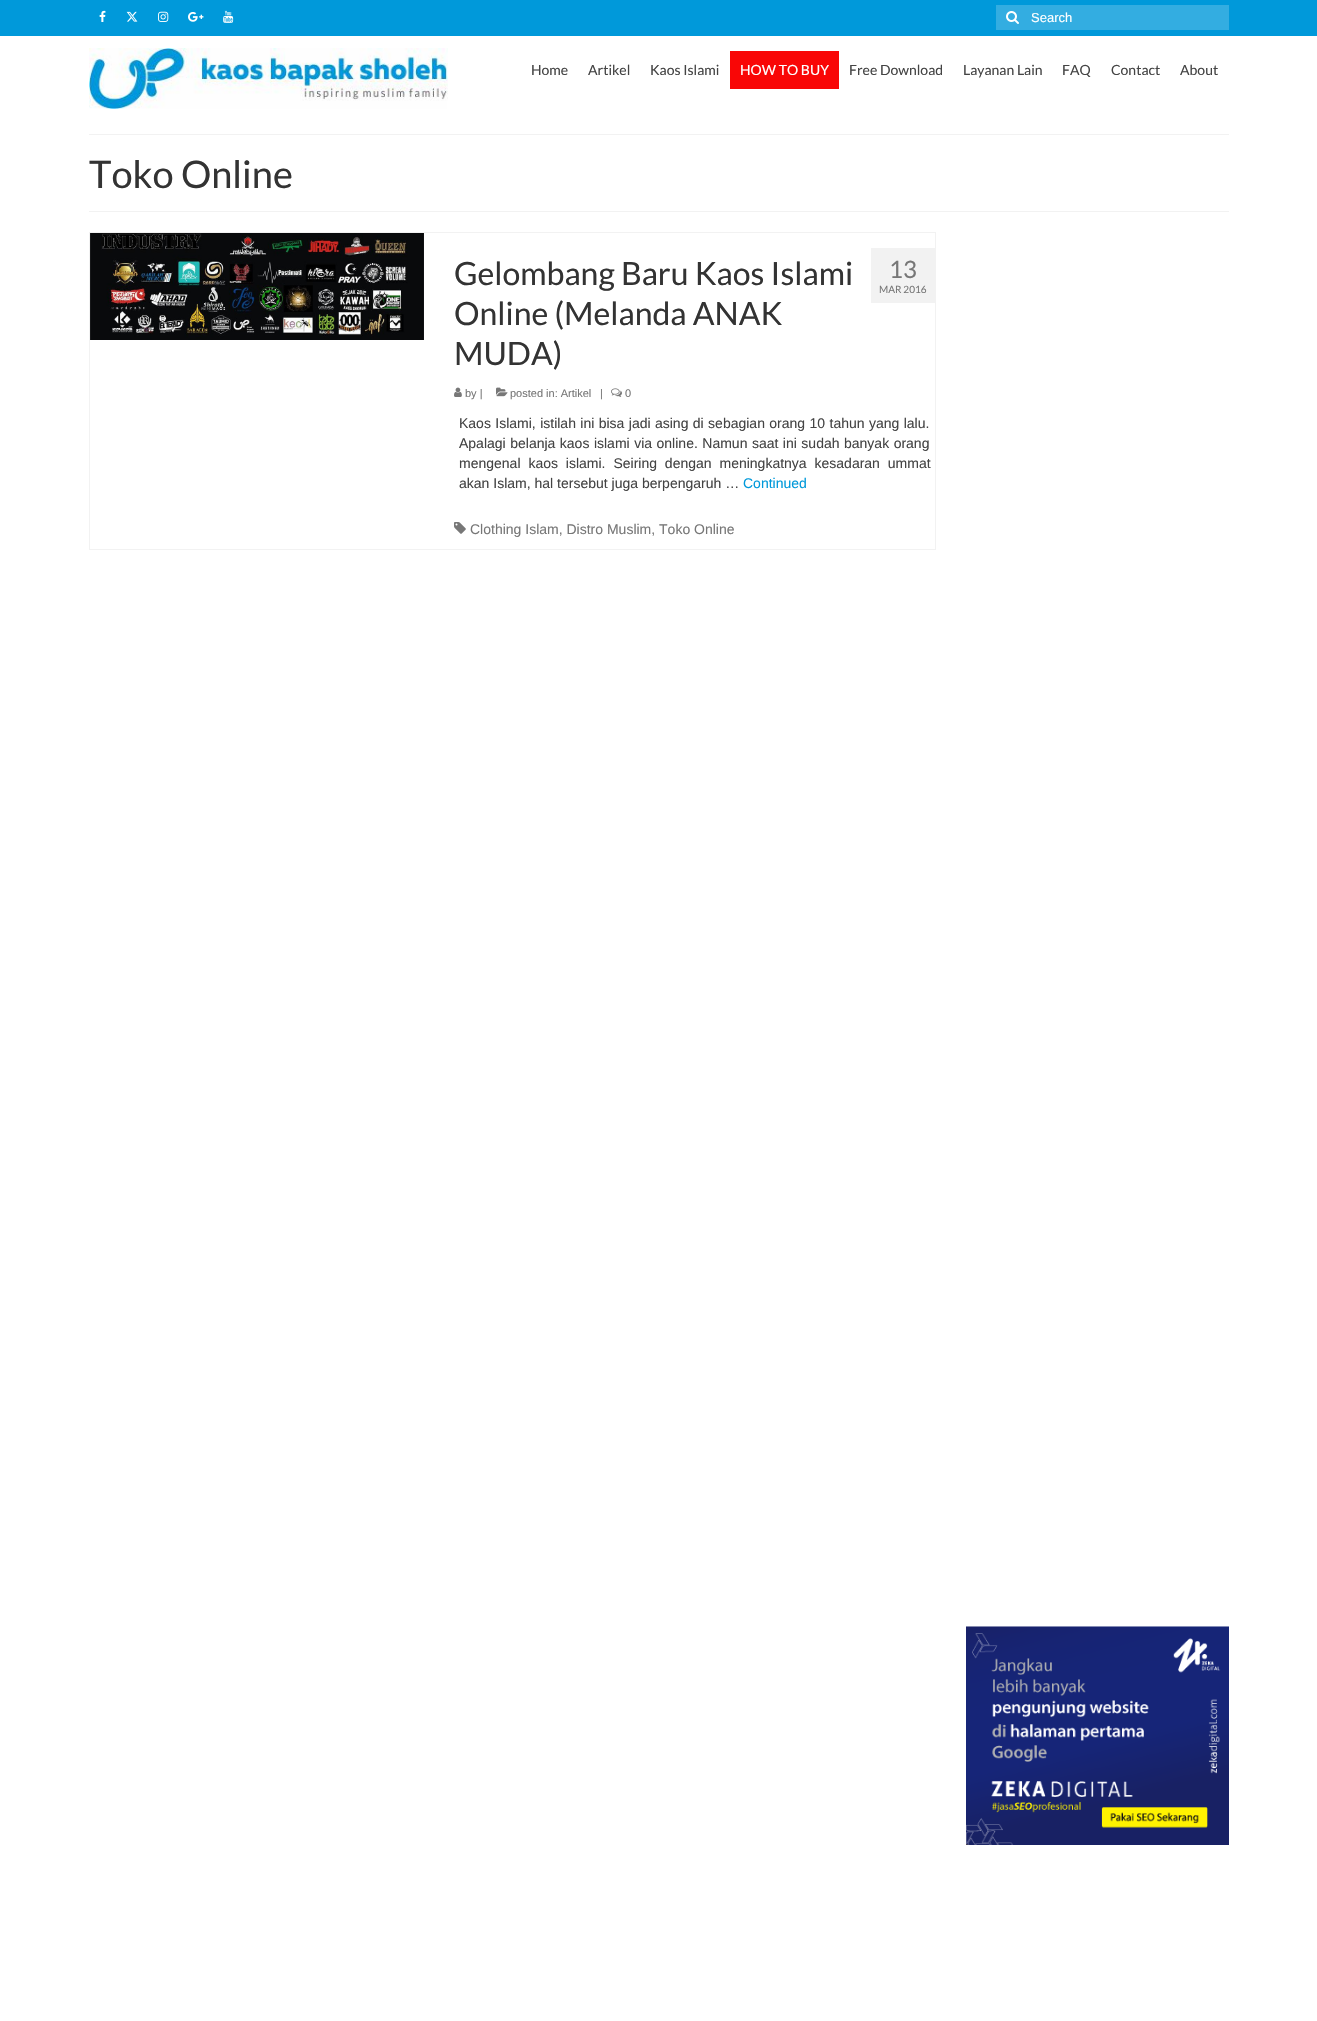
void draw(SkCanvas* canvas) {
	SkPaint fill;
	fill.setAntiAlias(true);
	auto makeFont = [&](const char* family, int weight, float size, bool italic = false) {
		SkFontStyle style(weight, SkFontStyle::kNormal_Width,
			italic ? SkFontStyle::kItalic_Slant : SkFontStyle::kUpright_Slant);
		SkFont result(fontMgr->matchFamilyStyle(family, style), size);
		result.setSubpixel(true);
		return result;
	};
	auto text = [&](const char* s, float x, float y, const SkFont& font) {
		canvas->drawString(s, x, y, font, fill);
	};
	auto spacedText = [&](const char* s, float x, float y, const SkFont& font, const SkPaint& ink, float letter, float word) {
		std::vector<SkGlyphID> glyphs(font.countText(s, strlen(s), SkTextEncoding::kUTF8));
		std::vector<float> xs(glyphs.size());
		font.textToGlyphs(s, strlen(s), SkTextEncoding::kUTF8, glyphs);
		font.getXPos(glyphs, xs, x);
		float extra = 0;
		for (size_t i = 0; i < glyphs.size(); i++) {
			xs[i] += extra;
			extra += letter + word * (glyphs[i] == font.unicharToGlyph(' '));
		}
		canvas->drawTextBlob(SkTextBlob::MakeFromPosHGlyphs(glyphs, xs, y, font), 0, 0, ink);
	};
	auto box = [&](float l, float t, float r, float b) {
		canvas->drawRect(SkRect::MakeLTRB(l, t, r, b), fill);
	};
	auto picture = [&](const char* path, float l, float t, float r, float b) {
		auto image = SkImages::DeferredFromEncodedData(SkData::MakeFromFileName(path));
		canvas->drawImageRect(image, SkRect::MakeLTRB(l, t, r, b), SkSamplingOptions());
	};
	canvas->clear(0xFFFFFFFF);
	fill.setColor(0xFF0099DA);
	box(0, 0, 1317, 36);
	picture("image0.png", 99, 10, 106, 22);
	picture("image1.png", 126, 11, 138, 22);
	picture("image2.png", 158, 11, 169, 22);
	picture("image3.png", 188, 12, 204, 22);
	picture("image4.png", 223, 10, 234, 23);
	fill.setColor(0xFF33ADE1);
	box(996, 5, 1229, 30);
	picture("image5.png", 1006, 11, 1019, 24);
	picture("image6.png", 89, 48, 448, 109);
	fill.setColor(0xFFF90606);
	box(730, 51, 839, 89);
	fill.setColor(0xFFF2F2F2);
	box(89, 134, 1229, 135);
	box(89, 211, 1229, 212);
	fill.setStyle(SkPaint::kStroke_Style);
	fill.setStrokeWidth(1);
	canvas->drawRect(SkRect::MakeLTRB(89.5f, 232.5f, 935.5f, 549.5f), fill);
	picture("image7.png", 90, 233, 424, 340);
	picture("image8.png", 454, 387, 462, 397);
	picture("image9.png", 496, 387, 508, 397);
	picture("image10.png", 611, 388, 622, 397);
	fill.setStyle(SkPaint::kFill_Style);
	box(871, 248, 935, 303);
	picture("image11.png", 454, 522, 466, 534);
	picture("image12.png", 966, 1626, 1229, 1845);
	auto font1 = makeFont("Liberation Sans", 400, 13);
	fill.setColor(0xFFFFFFFF);
	text("Search", 1031, 22, font1);
	auto font2 = makeFont("Lato", 400, 14);
	fill.setColor(0xFF444444);
	text("Home", 531, 75, font2);
	text("Artikel", 588, 75, font2);
	text("Kaos Islami", 650, 75, font2);
	fill.setColor(0xFFFFFFFF);
	text("HOW TO BUY", 740, 75, font2);
	fill.setColor(0xFF444444);
	text("Free Download", 849, 75, font2);
	text("Layanan Lain", 963, 75, font2);
	text("FAQ", 1062, 75, font2);
	text("Contact", 1111, 75, font2);
	text("About", 1180, 75, font2);
	auto font3 = makeFont("Lato", 400, 38);
	fill.setColor(0xFF333333);
	text("Toko Online", 89, 188, font3);
	auto font4 = makeFont("Lato", 400, 32);
	text("Gelombang Baru Kaos Islami", 454, 285, font4);
	text("Online (Melanda ANAK", 454, 325, font4);
	text("MUDA)", 454, 365, font4);
	auto font5 = makeFont("Liberation Sans", 400, 11);
	fill.setColor(0xFF777777);
	text("by |", 465, 397, font5);
	text("posted in: Artikel", 510, 397, font5);
	text("|", 600, 397, font5);
	text("0", 625, 397, font5);
	auto font6 = makeFont("Lato", 400, 24);
	text("13", 889, 278, font6);
	auto font7 = makeFont("Lato", 400, 10);
	text("MAR 2016", 879, 293, font7);
	auto font8 = makeFont("Liberation Sans", 400, 14);
	fill.setColor(0xFF444444);
	spacedText("Kaos Islami, istilah ini bisa jadi asing di sebagian orang 10 tahun yang lalu.", 459, 428, font8, fill, 0, 0.5f);
	spacedText("Apalagi belanja kaos islami via online. Namun saat ini sudah banyak orang", 459, 448, font8, fill, 0, 0.6f);
	spacedText("mengenal kaos islami. Seiring dengan meningkatnya kesadaran ummat", 459, 468, font8, fill, 0, 4);
	text("akan Islam, hal tersebut juga berpengaruh …", 459, 488, font8);
	fill.setColor(0xFF0099DA);
	text("Continued", 743, 488, font8);
	fill.setColor(0xFF777777);
	text("Clothing Islam, Distro Muslim, Toko Online", 470, 534, font8);
}
